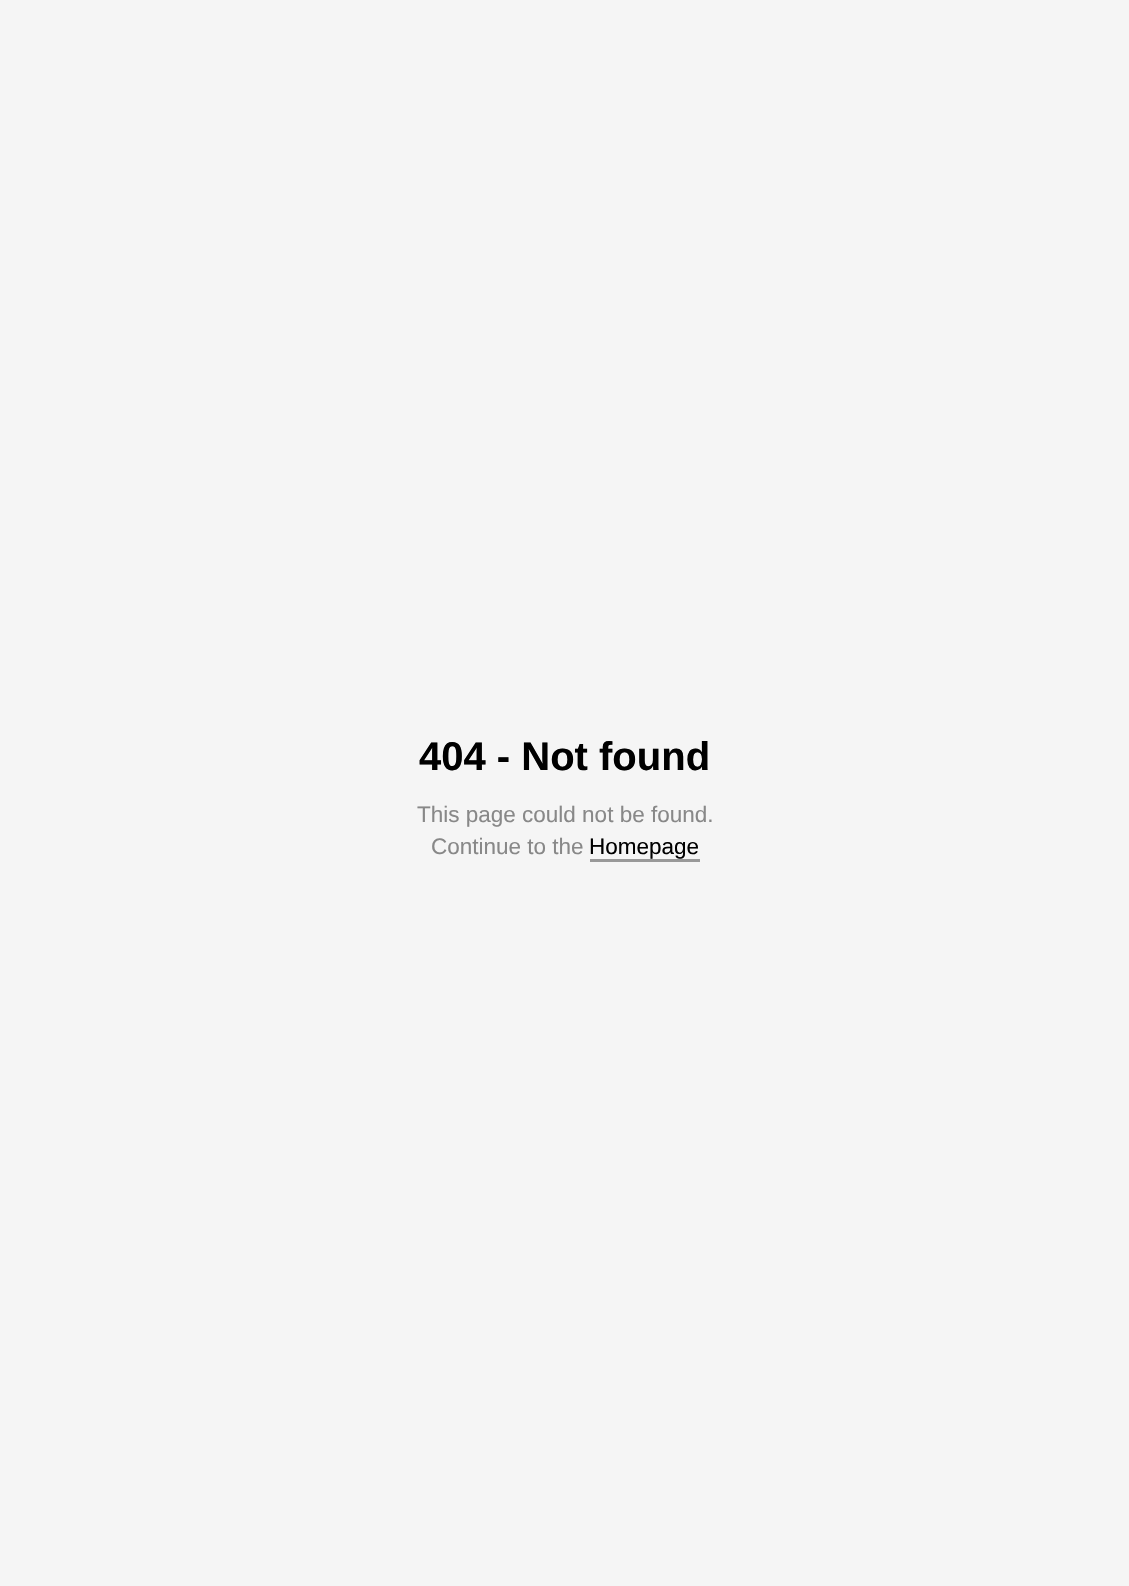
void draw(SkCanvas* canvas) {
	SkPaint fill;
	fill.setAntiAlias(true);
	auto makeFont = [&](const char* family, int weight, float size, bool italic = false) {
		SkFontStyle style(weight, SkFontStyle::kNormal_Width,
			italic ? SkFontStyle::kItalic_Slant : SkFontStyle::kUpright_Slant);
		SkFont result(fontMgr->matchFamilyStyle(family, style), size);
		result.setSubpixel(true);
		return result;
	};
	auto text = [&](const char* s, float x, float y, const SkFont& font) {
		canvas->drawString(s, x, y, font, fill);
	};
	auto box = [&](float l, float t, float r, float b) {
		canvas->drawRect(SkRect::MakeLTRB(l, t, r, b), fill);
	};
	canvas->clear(0xFFF5F5F5);
	fill.setColor(0xFF999999);
	box(590, 859, 700, 862);
	auto font1 = makeFont("Liberation Sans", 700, 40);
	fill.setColor(0xFF000000);
	text("404 - Not found", 419, 770, font1);
	auto font2 = makeFont("Liberation Sans", 400, 22.5f);
	fill.setColor(0xFF888888);
	text("This page could not be found.", 417, 822, font2);
	text("Continue to the", 431, 854, font2);
	fill.setColor(0xFF000000);
	text("Homepage", 589, 854, font2);
}
